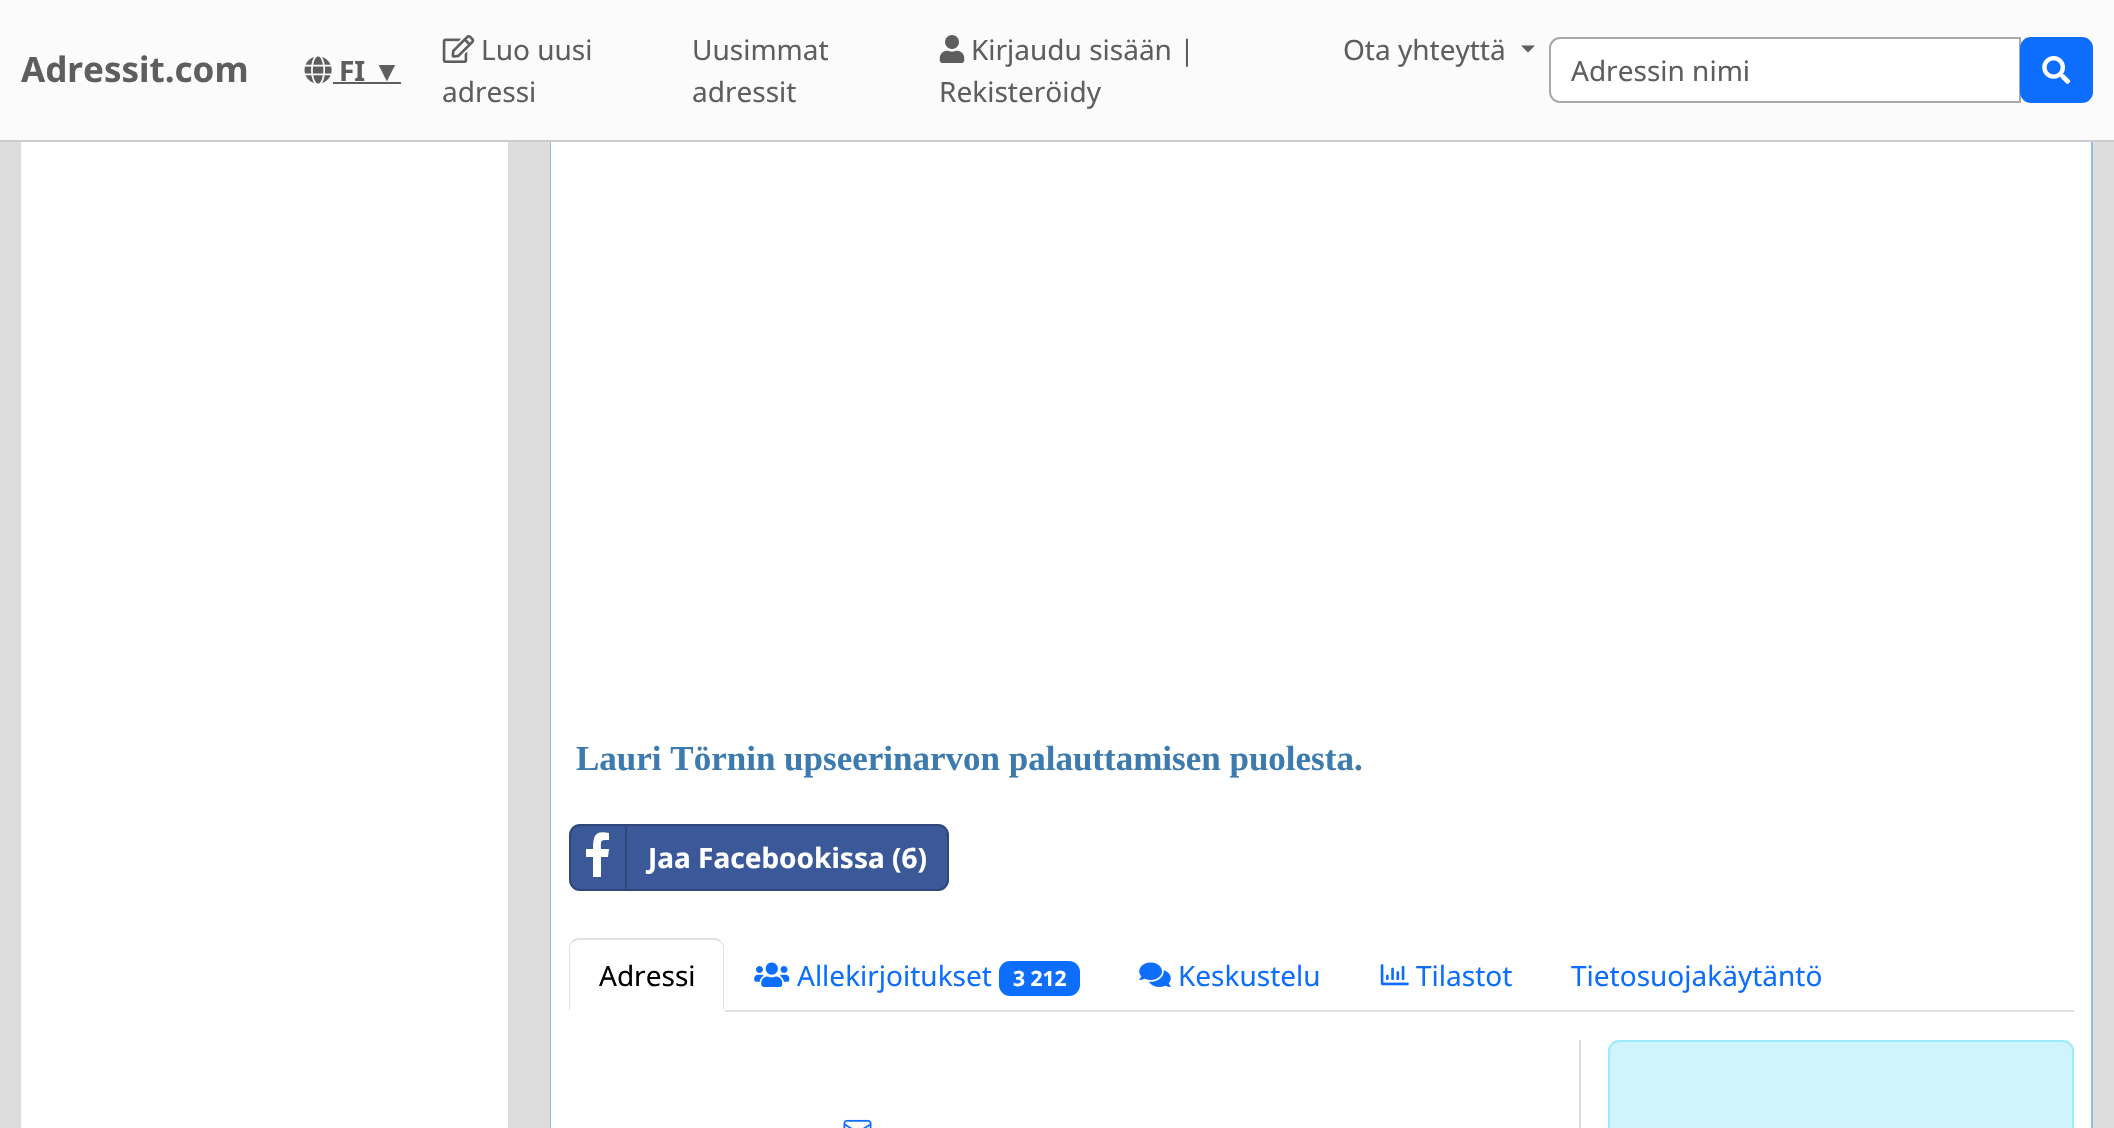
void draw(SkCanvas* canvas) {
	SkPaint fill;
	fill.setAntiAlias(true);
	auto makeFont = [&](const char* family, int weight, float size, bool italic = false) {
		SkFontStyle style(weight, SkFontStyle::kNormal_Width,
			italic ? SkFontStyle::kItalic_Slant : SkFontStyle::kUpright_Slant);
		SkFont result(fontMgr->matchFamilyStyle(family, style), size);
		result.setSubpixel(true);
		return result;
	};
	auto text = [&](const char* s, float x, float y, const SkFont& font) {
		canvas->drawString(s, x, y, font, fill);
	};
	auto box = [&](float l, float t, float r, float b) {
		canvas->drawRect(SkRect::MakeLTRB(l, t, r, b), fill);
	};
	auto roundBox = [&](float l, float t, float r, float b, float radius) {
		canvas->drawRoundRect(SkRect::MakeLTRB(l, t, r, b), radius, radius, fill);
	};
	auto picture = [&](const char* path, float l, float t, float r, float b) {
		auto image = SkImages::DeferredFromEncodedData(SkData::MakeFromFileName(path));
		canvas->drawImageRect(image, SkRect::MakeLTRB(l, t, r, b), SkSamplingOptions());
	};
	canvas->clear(0xFFDDDDDD);
	fill.setColor(0xFFFBFBFB);
	box(0, 0, 2114, 140);
	fill.setColor(0xFFCCCCCC);
	box(0, 140, 2114, 142);
	picture("image0.png", 304, 56, 332, 84);
	fill.setColor(0xFF5E5E5E);
	box(333, 82, 401, 84);
	picture("image1.png", 442, 35, 475, 63);
	picture("image2.png", 939, 35, 965, 63);
	canvas->drawPath(SkPathBuilder().moveTo(1521, 45.5f).lineTo(1535, 45.5f).lineTo(1528, 52.5f).close().detach(), fill);
	fill.setColor(0xFFFFFFFF);
	canvas->drawPath(SkPathBuilder().moveTo(1560, 38).lineTo(2020, 38).lineTo(2020, 102).lineTo(1560, 102).cubicTo(1554.5f, 102, 1550, 97.5f, 1550, 92).lineTo(1550, 48).cubicTo(1550, 42.5f, 1554.5f, 38, 1560, 38).close().detach(), fill);
	fill.setStyle(SkPaint::kStroke_Style);
	fill.setStrokeWidth(2);
	fill.setColor(0xFFA9A9A9);
	canvas->drawPath(SkPathBuilder().moveTo(1560, 38).lineTo(2020, 38).lineTo(2020, 102).lineTo(1560, 102).cubicTo(1554.5f, 102, 1550, 97.5f, 1550, 92).lineTo(1550, 48).cubicTo(1550, 42.5f, 1554.5f, 38, 1560, 38).close().detach(), fill);
	fill.setStyle(SkPaint::kFill_Style);
	fill.setColor(0xFF0D6EFD);
	canvas->drawRoundRect(SkRect::MakeLTRB(2021, 38, 2092, 102), 10, 10, fill);
	fill.setStyle(SkPaint::kStroke_Style);
	canvas->drawRoundRect(SkRect::MakeLTRB(2021, 38, 2092, 102), 10, 10, fill);
	picture("image3.png", 2042, 56, 2071, 84);
	fill.setStyle(SkPaint::kFill_Style);
	fill.setColor(0xFFFFFFFF);
	box(21, 142, 508, 1128);
	box(551, 142, 2091, 1128);
	fill.setColor(0xFF95BCE2);
	canvas->drawPath(SkPathBuilder(SkPathFillType::kEvenOdd).moveTo(550, 142).lineTo(2093, 142).lineTo(2093, 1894).cubicTo(2093, 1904, 2084, 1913, 2074, 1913).lineTo(569, 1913).cubicTo(558, 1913, 550, 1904, 550, 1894).close().moveTo(551, 142).lineTo(2091, 142).lineTo(2091, 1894).cubicTo(2091, 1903, 2083, 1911, 2074, 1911).lineTo(569, 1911).cubicTo(559, 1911, 551, 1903, 551, 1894).close().detach(), fill);
	fill.setColor(0xFF3B5998);
	roundBox(569, 824, 949, 891, 11);
	fill.setStyle(SkPaint::kStroke_Style);
	fill.setColor(0x33000000);
	canvas->drawRoundRect(SkRect::MakeLTRB(570, 825, 948, 890), 10, 10, fill);
	fill.setStyle(SkPaint::kFill_Style);
	fill.setColor(0xFF2F477A);
	box(625, 826, 627, 889);
	fill.setColor(0xFFFFFFFF);
	canvas->drawPath(SkPathBuilder().moveTo(593, 877).lineTo(593, 857).lineTo(586, 857).lineTo(586, 849).lineTo(593, 849).cubicTo(593, 836, 595, 830, 609, 833).lineTo(609, 840).cubicTo(600, 840, 601, 840, 601, 849).lineTo(609, 849).lineTo(608, 857).lineTo(601, 857).lineTo(601, 877).close().detach(), fill);
	fill.setColor(0xFFDEE2E6);
	box(725, 1010, 2074, 1012);
	canvas->drawPath(SkPathBuilder().moveTo(579, 938).cubicTo(576, 938, 574, 939, 572, 941).lineTo(573, 942).cubicTo(575, 941, 577, 940, 579, 940).lineTo(714, 940).cubicTo(716, 940, 719, 941, 720, 942).lineTo(721, 941).cubicTo(720, 939, 717, 938, 714, 938).close().detach(), fill);
	canvas->drawPath(SkPathBuilder().moveTo(721, 941).cubicTo(723, 943, 724, 946, 724, 948).lineTo(724, 1011).lineTo(723, 1010).lineTo(723, 948).cubicTo(723, 946, 722, 944, 720, 942).close().detach(), fill);
	fill.setColor(0xFFFFFFFF);
	canvas->drawPath(SkPathBuilder().moveTo(569, 1012).lineTo(570, 1010).lineTo(723, 1010).lineTo(724, 1011).lineTo(724, 1012).close().detach(), fill);
	fill.setColor(0xFFDEE2E6);
	canvas->drawPath(SkPathBuilder().moveTo(572, 941).cubicTo(570, 943, 569, 945, 569, 948).lineTo(569, 1011).lineTo(570, 1010).lineTo(570, 948).cubicTo(570, 946, 571, 944, 573, 942).close().detach(), fill);
	picture("image4.png", 754, 962, 790, 987);
	fill.setColor(0xFF0D6EFD);
	roundBox(999, 961, 1080, 996, 11);
	picture("image5.png", 1139, 962, 1171, 987);
	picture("image6.png", 1380, 964, 1409, 986);
	picture("image7.png", 843, 1119, 872, 1128);
	fill.setColor(0xFFDDDDDD);
	box(1579, 1040, 1581, 1128);
	fill.setColor(0xFFCFF4FC);
	canvas->drawRoundRect(SkRect::MakeLTRB(1609, 1041, 2073, 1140), 10, 10, fill);
	fill.setStyle(SkPaint::kStroke_Style);
	fill.setColor(0xFF9EEAF9);
	canvas->drawRoundRect(SkRect::MakeLTRB(1609, 1041, 2073, 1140), 10, 10, fill);
	auto font1 = makeFont("Noto Sans", 700, 35);
	fill.setStyle(SkPaint::kFill_Style);
	fill.setColor(0xFF5E5E5E);
	text("Adressit.com", 21, 82, font1);
	auto font2 = makeFont("Noto Sans", 700, 28);
	text("FI", 339, 81, font2);
	auto font3 = makeFont("Liberation Sans", 400, 28);
	text("▼", 373, 81, font3);
	auto font4 = makeFont("Noto Sans", 400, 28);
	text("Luo uusi", 481, 60, font4);
	text("adressi", 442, 102, font4);
	text("Uusimmat", 692, 60, font4);
	text("adressit", 692, 102, font4);
	text("Kirjaudu sisään |", 971, 60, font4);
	text("Rekisteröidy", 939, 102, font4);
	text("Ota yhteyttä", 1343, 60, font4);
	text("Adressin nimi", 1571, 81, font4);
	auto font5 = makeFont("Liberation Serif", 700, 35);
	fill.setColor(0xFF3D7BAE);
	text("Lauri Törnin upseerinarvon palauttamisen puolesta.", 576, 770, font5);
	fill.setColor(0xFFFFFFFF);
	text("Jaa Facebookissa (6)", 648, 868, font2);
	fill.setColor(0xFF000000);
	text("Adressi", 599, 986, font4);
	fill.setColor(0xFF0D6EFD);
	text("Allekirjoitukset", 797, 986, font4);
	auto font6 = makeFont("Noto Sans", 700, 21);
	fill.setColor(0xFFFFFFFF);
	text("3 212", 1013, 986, font6);
	fill.setColor(0xFF0D6EFD);
	text("Keskustelu", 1178, 986, font4);
	text("Tilastot", 1416, 986, font4);
	text("Tietosuojakäytäntö", 1571, 986, font4);
}
